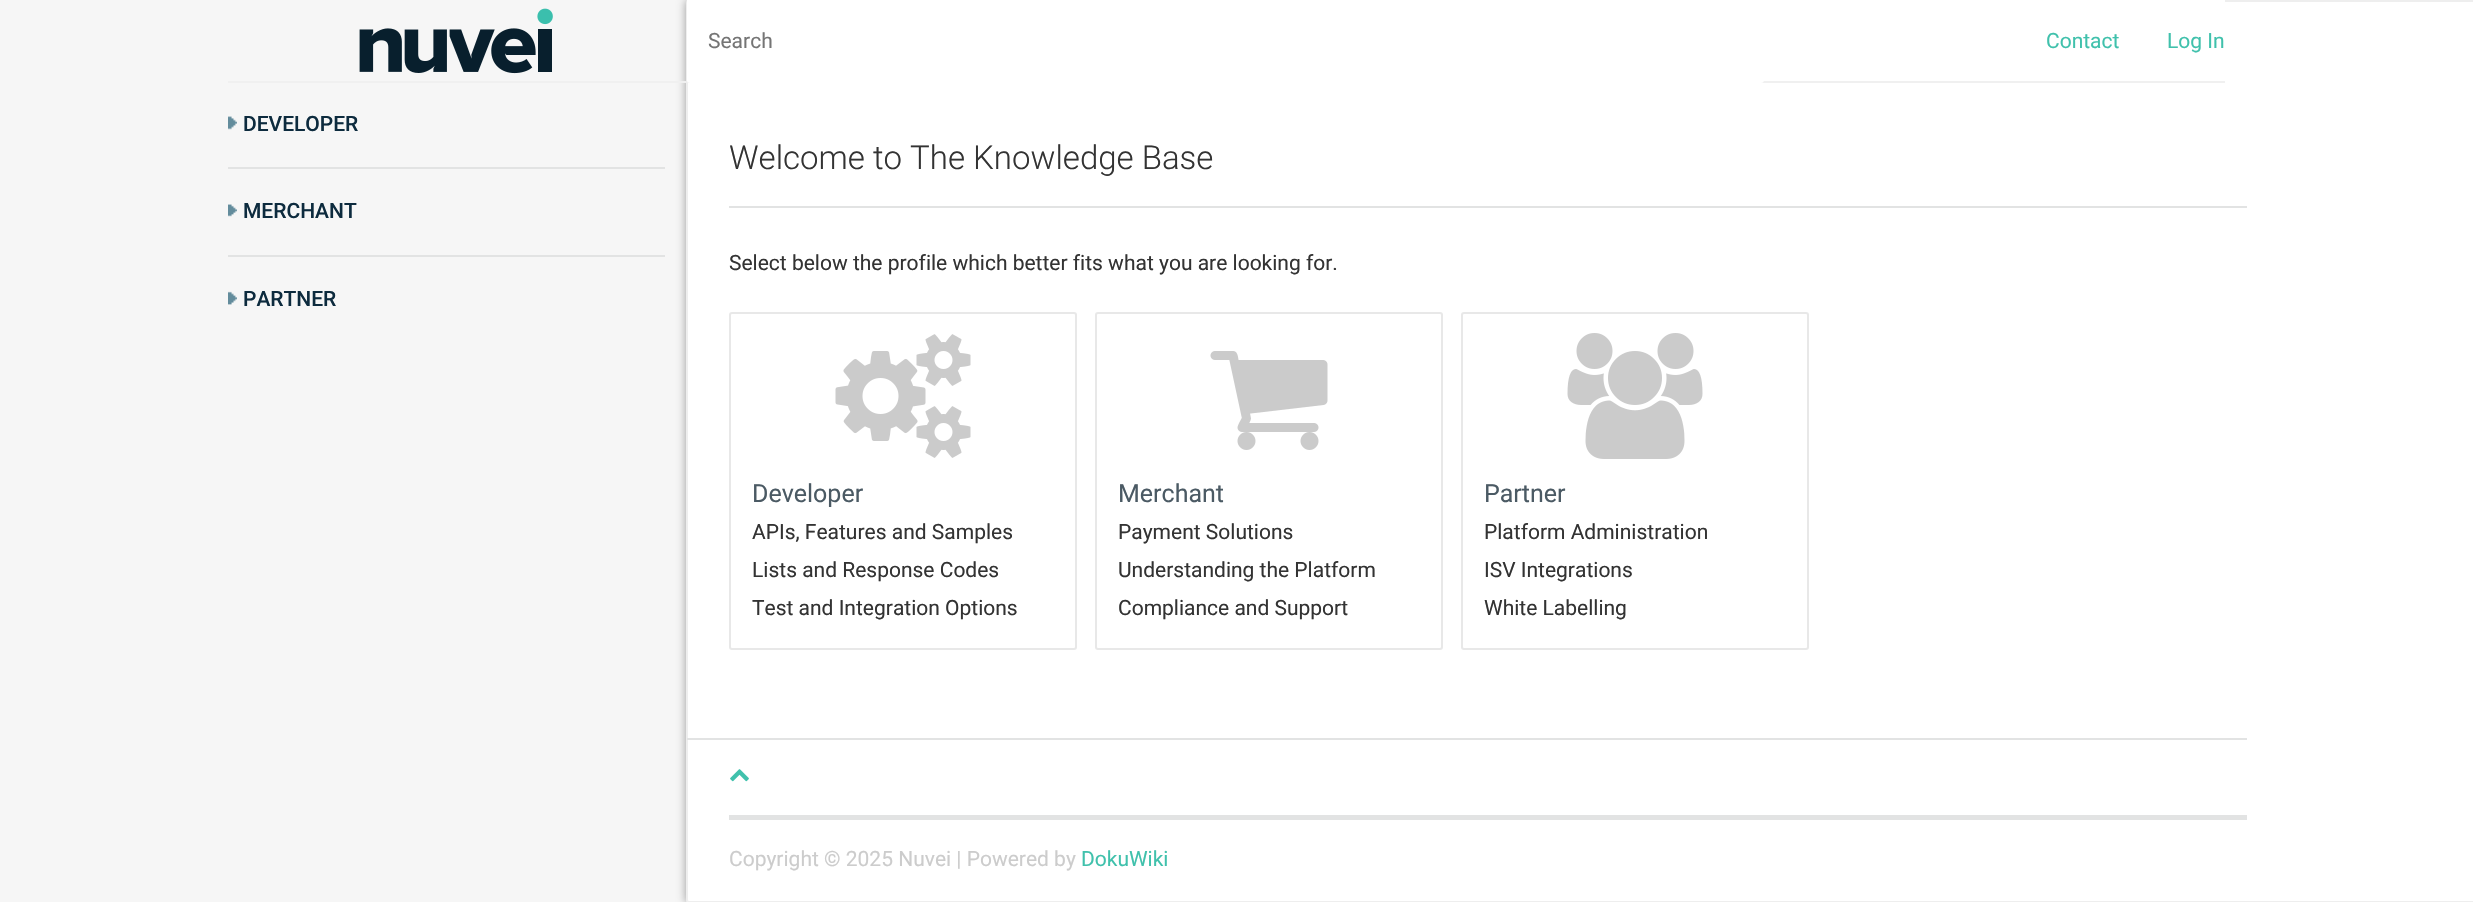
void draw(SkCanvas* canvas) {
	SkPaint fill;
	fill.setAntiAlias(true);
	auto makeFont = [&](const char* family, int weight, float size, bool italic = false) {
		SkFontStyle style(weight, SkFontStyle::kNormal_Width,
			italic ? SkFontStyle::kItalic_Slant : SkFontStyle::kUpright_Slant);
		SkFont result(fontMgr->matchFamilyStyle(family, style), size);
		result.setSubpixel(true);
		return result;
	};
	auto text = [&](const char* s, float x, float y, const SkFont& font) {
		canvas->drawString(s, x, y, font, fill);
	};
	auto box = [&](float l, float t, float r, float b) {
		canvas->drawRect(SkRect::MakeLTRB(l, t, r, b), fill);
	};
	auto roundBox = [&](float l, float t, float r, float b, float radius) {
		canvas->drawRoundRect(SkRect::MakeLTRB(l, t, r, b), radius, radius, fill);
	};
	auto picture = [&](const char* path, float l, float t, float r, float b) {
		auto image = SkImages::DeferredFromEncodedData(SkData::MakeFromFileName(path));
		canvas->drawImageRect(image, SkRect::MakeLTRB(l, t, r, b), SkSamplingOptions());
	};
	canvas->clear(0xFFFFFFFF);
	fill.setColor(0xFFF6F6F6);
	box(0, 0, 686, 902);
	fill.setColor(0xFF999999);
	fill.setMaskFilter(SkMaskFilter::MakeBlur(kNormal_SkBlurStyle, 5));
	canvas->drawRoundRect(SkRect::MakeLTRB(686, 0, 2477, 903), 3, 3, fill);
	fill.setMaskFilter(nullptr);
	fill.setColor(0xFFF0F0F0);
	box(228, 81, 686, 83);
	picture("image0.png", 359, 8, 553, 74);
	picture("image1.png", 228, 116, 237, 130);
	fill.setColor(0xFFE2E3E3);
	box(228, 167, 665, 169);
	picture("image2.png", 228, 204, 237, 217);
	box(228, 255, 665, 257);
	picture("image3.png", 228, 291, 237, 305);
	fill.setColor(0xFFFFFFFF);
	canvas->drawRoundRect(SkRect::MakeLTRB(687, 1, 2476, 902), 2, 2, fill);
	fill.setStyle(SkPaint::kStroke_Style);
	fill.setStrokeWidth(2);
	fill.setColor(0xFFEEEEEE);
	canvas->drawRoundRect(SkRect::MakeLTRB(687, 1, 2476, 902), 2, 2, fill);
	fill.setStyle(SkPaint::kFill_Style);
	fill.setColor(0xFFFFFFFF);
	box(687, 0, 2225, 81);
	fill.setColor(0xFFF0F0F0);
	box(687, 81, 2225, 83);
	fill.setColor(0xFFFFFFFF);
	roundBox(687, 0, 1764, 83, 3);
	fill.setColor(0xFFE2E3E3);
	box(729, 206, 2247, 208);
	fill.setStyle(SkPaint::kStroke_Style);
	fill.setColor(0xFFE8E8E8);
	canvas->drawRoundRect(SkRect::MakeLTRB(730, 313, 1076, 649), 2, 2, fill);
	picture("image4.png", 835, 334, 971, 458);
	canvas->drawRoundRect(SkRect::MakeLTRB(1096, 313, 1442, 649), 2, 2, fill);
	picture("image5.png", 1210, 351, 1328, 450);
	canvas->drawRoundRect(SkRect::MakeLTRB(1462, 313, 1808, 649), 2, 2, fill);
	picture("image6.png", 1567, 333, 1703, 459);
	fill.setStyle(SkPaint::kFill_Style);
	fill.setColor(0xFFE2E3E3);
	box(687, 738, 2247, 740);
	picture("image7.png", 730, 769, 749, 782);
	box(729, 815, 2247, 820);
	auto font1 = makeFont("Roboto", 500, 21);
	fill.setColor(0xFF0D2B3E);
	text("DEVELOPER", 243, 131, font1);
	text("MERCHANT", 243, 218, font1);
	text("PARTNER", 243, 306, font1);
	auto font2 = makeFont("Roboto", 400, 21);
	fill.setColor(0xFF757575);
	text("Search", 708, 48, font2);
	fill.setColor(0xFF40C1AC);
	text("Contact", 2046, 48, font2);
	text("Log In", 2167, 48, font2);
	auto font3 = makeFont("Roboto", 300, 33);
	fill.setColor(0xFF333333);
	text("Welcome to The Knowledge Base", 729, 169, font3);
	text("Select below the profile which better fits what you are looking for.", 729, 270, font2);
	auto font4 = makeFont("Roboto", 400, 25);
	fill.setColor(0xFF4B5A64);
	text("Developer", 752, 502, font4);
	fill.setColor(0xFF333333);
	text("APIs, Features and Samples", 752, 539, font2);
	text("Lists and Response Codes", 752, 577, font2);
	text("Test and Integration Options", 752, 615, font2);
	fill.setColor(0xFF4B5A64);
	text("Merchant", 1118, 502, font4);
	fill.setColor(0xFF333333);
	text("Payment Solutions", 1118, 539, font2);
	text("Understanding the Platform", 1118, 577, font2);
	text("Compliance and Support", 1118, 615, font2);
	fill.setColor(0xFF4B5A64);
	text("Partner", 1484, 502, font4);
	fill.setColor(0xFF333333);
	text("Platform Administration", 1484, 539, font2);
	text("ISV Integrations", 1484, 577, font2);
	text("White Labelling", 1484, 615, font2);
	fill.setColor(0xFFCCCCCC);
	text("Copyright © 2025 Nuvei | Powered by", 729, 866, font2);
	fill.setColor(0xFF40C1AC);
	text("DokuWiki", 1081, 866, font2);
}
